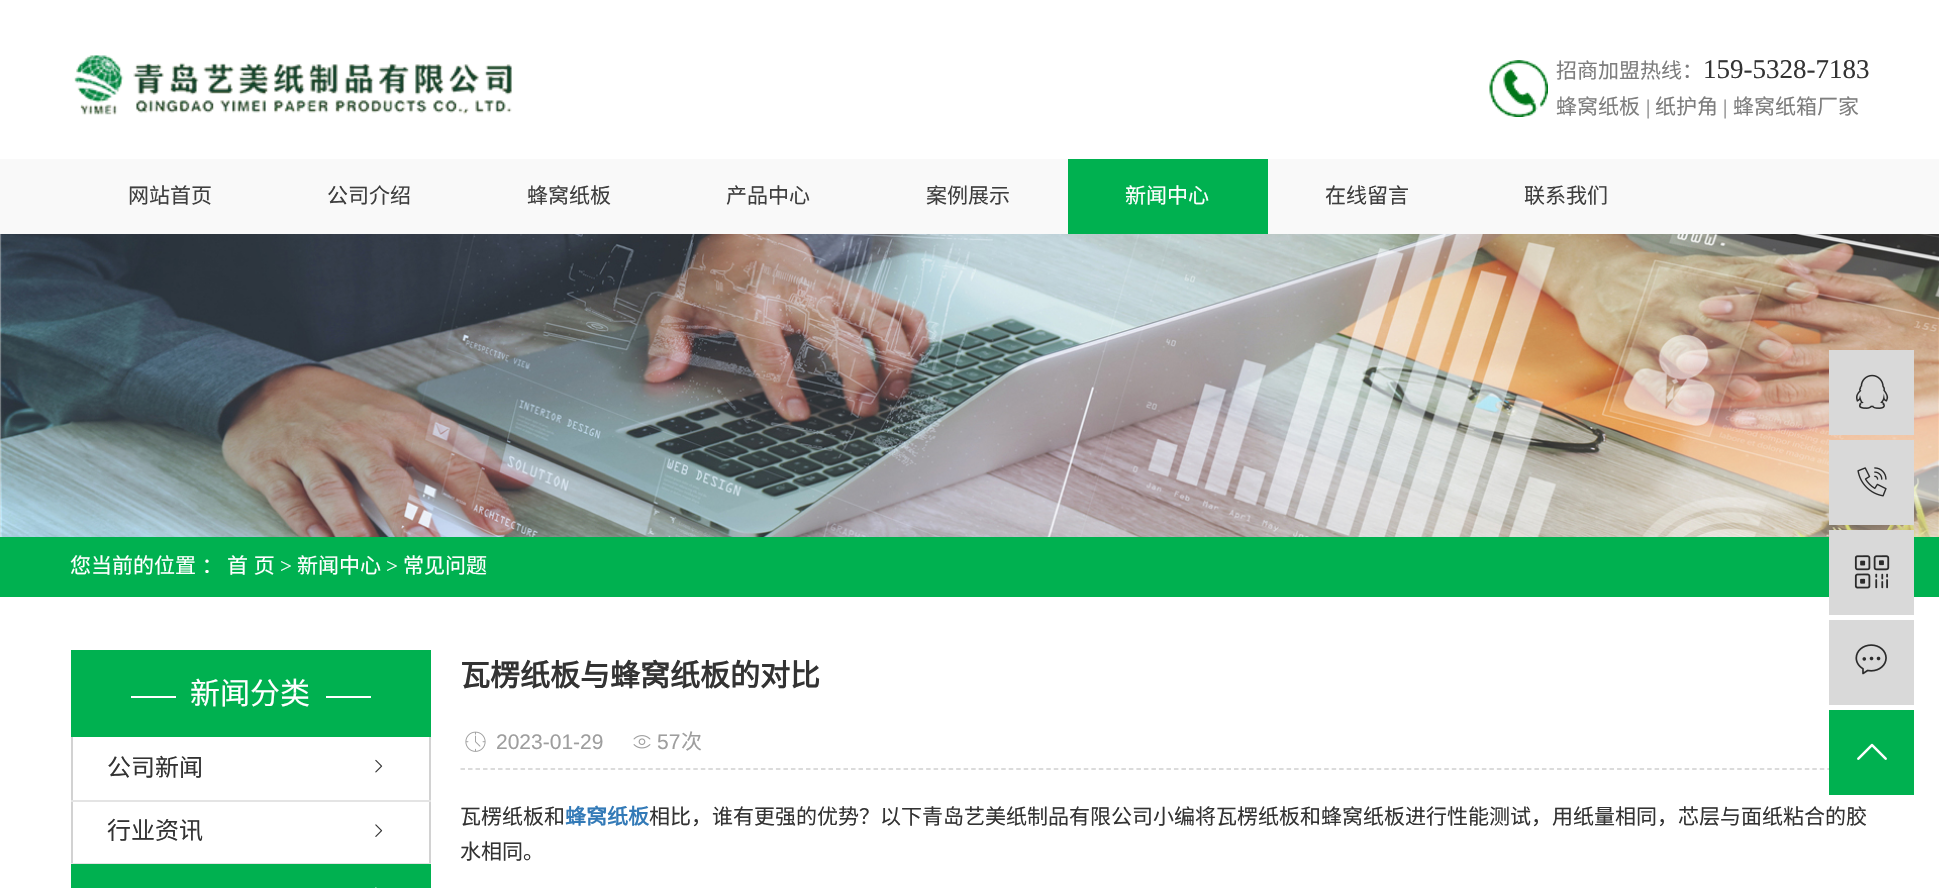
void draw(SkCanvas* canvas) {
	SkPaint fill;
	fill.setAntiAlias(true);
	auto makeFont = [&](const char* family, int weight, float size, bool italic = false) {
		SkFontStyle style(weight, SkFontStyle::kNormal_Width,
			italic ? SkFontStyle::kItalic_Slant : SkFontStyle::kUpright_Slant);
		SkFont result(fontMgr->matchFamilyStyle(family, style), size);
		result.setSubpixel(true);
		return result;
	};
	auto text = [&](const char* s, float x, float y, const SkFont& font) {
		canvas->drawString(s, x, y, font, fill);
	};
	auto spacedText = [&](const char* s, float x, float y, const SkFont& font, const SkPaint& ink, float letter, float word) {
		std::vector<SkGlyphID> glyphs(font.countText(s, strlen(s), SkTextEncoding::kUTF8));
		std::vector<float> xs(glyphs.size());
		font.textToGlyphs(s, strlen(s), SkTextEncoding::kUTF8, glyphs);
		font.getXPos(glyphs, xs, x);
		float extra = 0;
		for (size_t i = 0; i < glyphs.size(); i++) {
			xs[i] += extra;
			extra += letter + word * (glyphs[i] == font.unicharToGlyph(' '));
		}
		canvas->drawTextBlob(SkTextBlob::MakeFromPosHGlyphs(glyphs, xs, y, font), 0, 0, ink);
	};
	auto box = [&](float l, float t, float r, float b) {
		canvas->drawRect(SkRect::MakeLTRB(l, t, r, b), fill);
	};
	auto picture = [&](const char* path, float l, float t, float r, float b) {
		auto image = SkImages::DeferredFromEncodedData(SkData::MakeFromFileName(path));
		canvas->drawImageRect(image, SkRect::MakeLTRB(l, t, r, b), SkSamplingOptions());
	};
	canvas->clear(0xFFFFFFFF);
	picture("image0.png", 74, 55, 512, 115);
	picture("image1.png", 1489, 60, 1548, 117);
	fill.setColor(0xFFF9F9F9);
	box(0, 159, 1939, 234);
	fill.setColor(0xFF00B150);
	box(1068, 159, 1268, 234);
	picture("image2.png", 0, 234, 1939, 537);
	box(0, 537, 1939, 597);
	fill.setColor(0xFFD9D9D9);
	box(1829, 350, 1914, 435);
	picture("image3.png", 1856, 374, 1889, 409);
	box(1829, 440, 1914, 525);
	picture("image4.png", 1857, 467, 1887, 497);
	box(1829, 530, 1914, 615);
	picture("image5.png", 1854, 555, 1890, 589);
	box(1829, 620, 1914, 705);
	picture("image6.png", 1855, 644, 1887, 675);
	fill.setStyle(SkPaint::kStroke_Style);
	fill.setStrokeWidth(1.5f);
	fill.setColor(0xFFCFCFCF);
	fill.setPathEffect(SkDashPathEffect::Make({{4.5f, 3.01f}}, 0));
	canvas->drawPath(SkPathBuilder().moveTo(460.5f, 769).lineTo(1870.5f, 769).detach(), fill);
	fill.setPathEffect(nullptr);
	fill.setStyle(SkPaint::kFill_Style);
	fill.setColor(0xFF00B150);
	box(1829, 710, 1914, 795);
	picture("image7.png", 1857, 743, 1887, 760);
	box(71, 650, 431, 737);
	fill.setColor(0xFFFFFFFF);
	box(131, 696, 176, 698);
	box(326, 696, 371, 698);
	fill.setColor(0xFFD2D2D2);
	box(429, 737, 431, 863);
	box(71, 737, 73, 863);
	picture("image8.png", 375, 759, 383, 773);
	fill.setColor(0xFFE4E4E4);
	box(71, 800, 431, 802);
	picture("image9.png", 375, 824, 383, 837);
	box(71, 863, 431, 864);
	fill.setColor(0xFF00B150);
	box(71, 864, 431, 888);
	picture("image10.png", 375, 887, 377, 888);
	picture("image11.png", 465, 731, 486, 752);
	picture("image12.png", 633, 735, 651, 749);
	auto font1 = makeFont("Noto Sans CJK SC", 400, 21);
	fill.setColor(0xFF7E7E7E);
	text("招商加盟热线：", 1556, 78, font1);
	auto font2 = makeFont("Liberation Serif", 400, 27);
	fill.setColor(0xFF333333);
	text("159-5328-7183", 1703, 78, font2);
	fill.setColor(0xFF7E7E7E);
	text("蜂窝纸板", 1556, 114, font1);
	auto font3 = makeFont("Liberation Serif", 400, 21);
	text("|", 1646, 114, font3);
	text("纸护角", 1655, 114, font1);
	text("|", 1723, 114, font3);
	text("蜂窝纸箱厂家", 1733, 114, font1);
	fill.setColor(0xFF3E3E3E);
	text("网站首页", 128, 203, font1);
	text("公司介绍", 327, 203, font1);
	text("蜂窝纸板", 527, 203, font1);
	text("产品中心", 726, 203, font1);
	text("案例展示", 926, 203, font1);
	fill.setColor(0xFFFFFFFF);
	text("新闻中心", 1125, 203, font1);
	fill.setColor(0xFF3E3E3E);
	text("在线留言", 1325, 203, font1);
	text("联系我们", 1524, 203, font1);
	fill.setColor(0xFFFFFFFF);
	spacedText("您当前的位置 ：", 70, 573, font1, fill, 0, 1);
	spacedText("首 页", 227, 573, font1, fill, 0, 1);
	text(">", 280, 573, font3);
	text("新闻中心", 297, 573, font1);
	text(">", 386, 573, font3);
	text("常见问题", 403, 573, font1);
	auto font4 = makeFont("Noto Sans CJK SC", 400, 30);
	text("新闻分类", 190, 704, font4);
	auto font5 = makeFont("Noto Sans CJK SC", 400, 24);
	fill.setColor(0xFF333333);
	text("公司新闻", 107, 776, font5);
	text("行业资讯", 107, 839, font5);
	auto font6 = makeFont("Noto Sans CJK SC", 700, 30);
	text("瓦楞纸板与蜂窝纸板的对比", 460, 686, font6);
	auto font7 = makeFont("Liberation Sans", 400, 21);
	fill.setColor(0xFF9E9E9E);
	text("2023-01-29", 496, 749, font7);
	text("57", 657, 749, font7);
	text("次", 681, 749, font1);
	fill.setColor(0xFF333333);
	text("瓦楞纸板和", 460, 824, font1);
	auto font8 = makeFont("Noto Sans CJK SC", 700, 21);
	fill.setColor(0xFF337AB7);
	text("蜂窝纸板", 565, 824, font8);
	fill.setColor(0xFF333333);
	text("相比，谁有更强的优势？以下青岛艺美纸制品有限公司小编将瓦楞纸板和蜂窝纸板进行性能测试，用纸量相同，芯层与面纸粘合的胶", 649, 824, font1);
	text("水相同。", 460, 859, font1);
}
